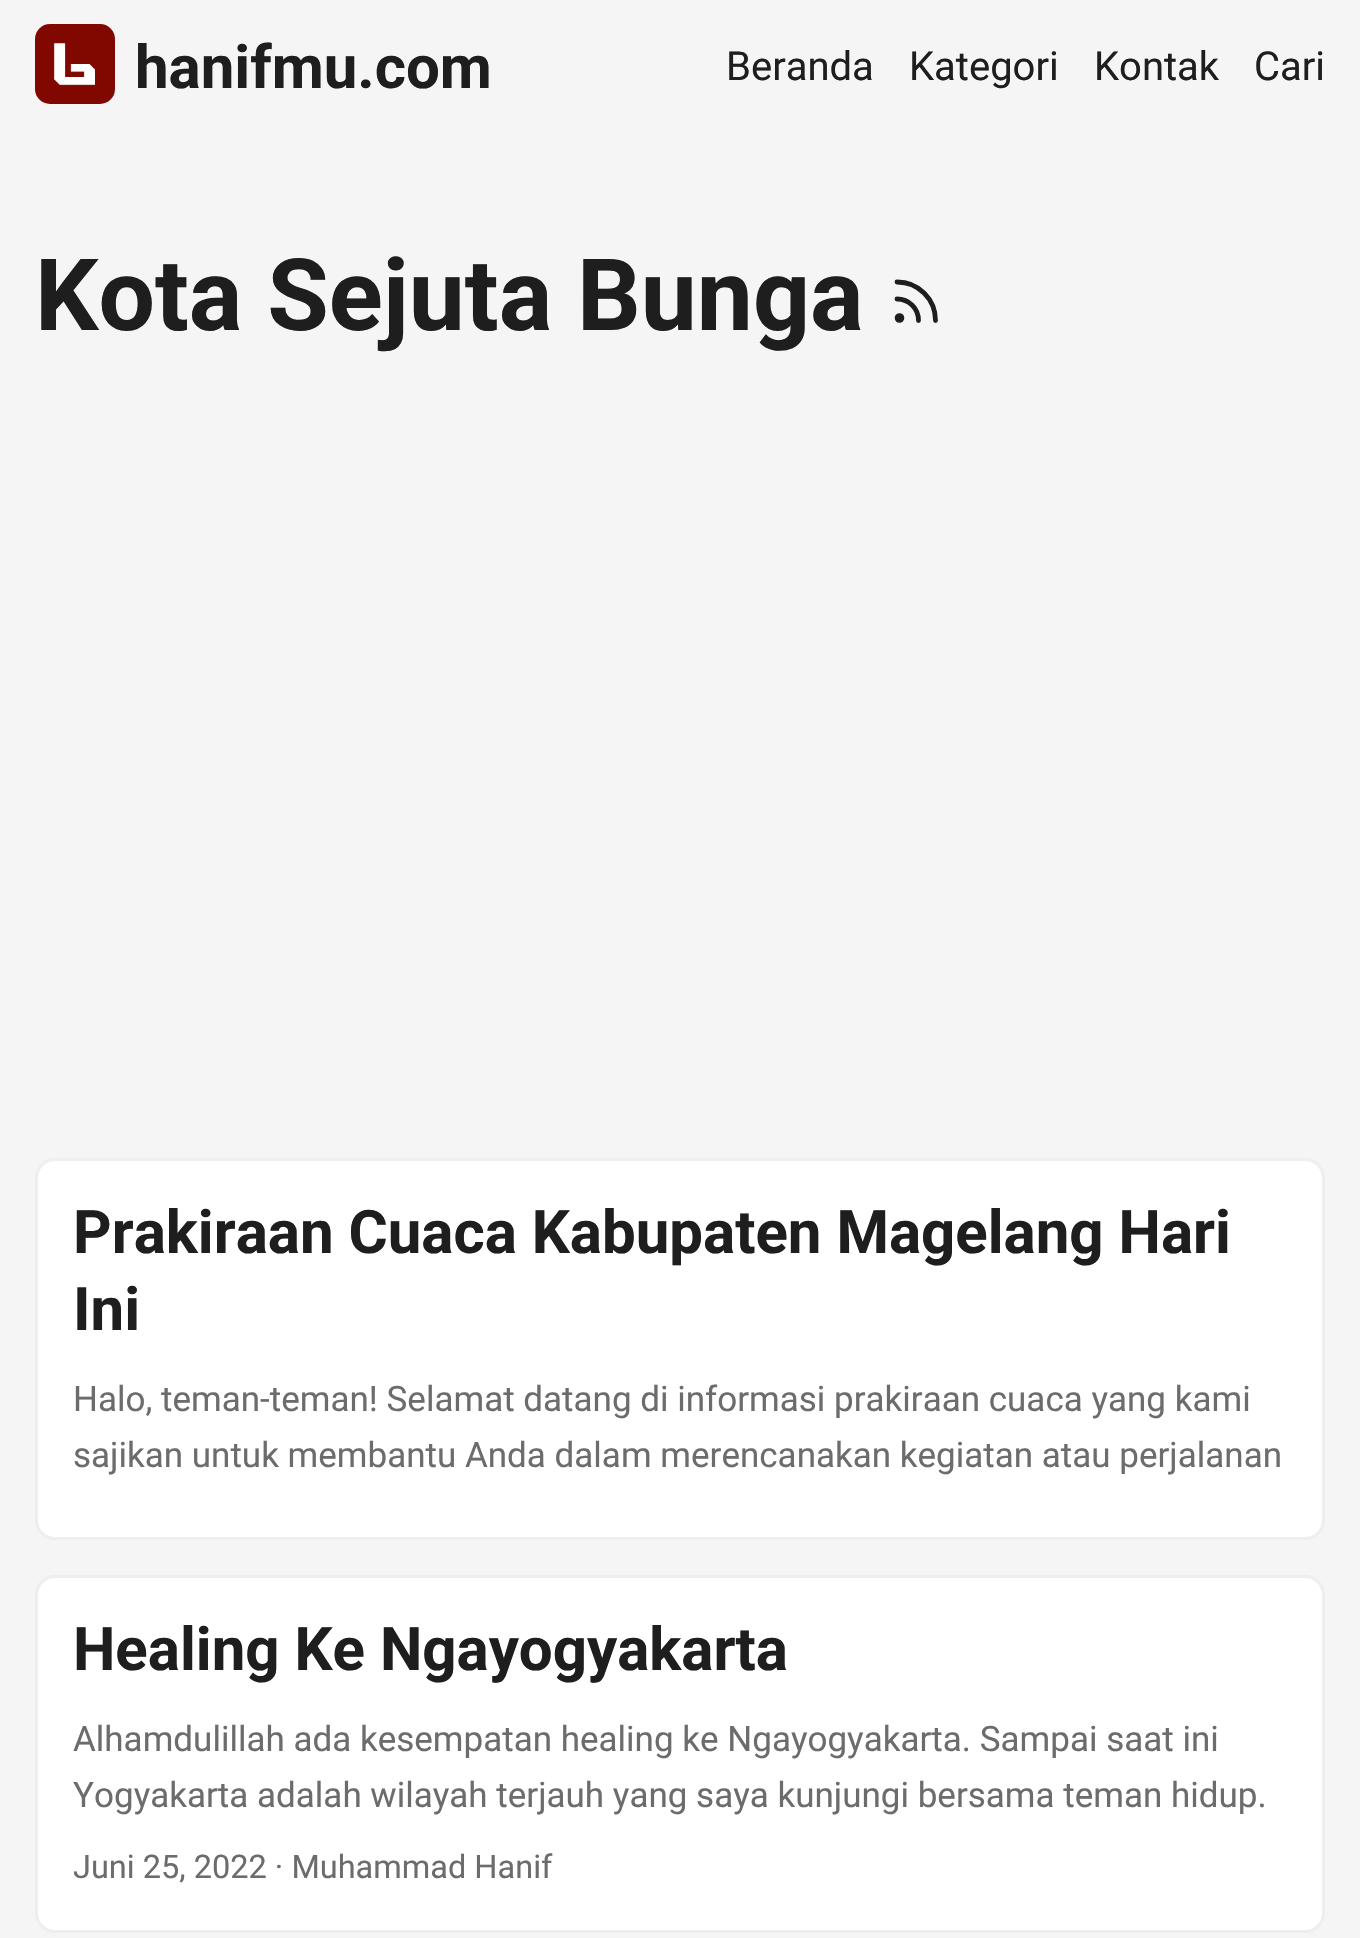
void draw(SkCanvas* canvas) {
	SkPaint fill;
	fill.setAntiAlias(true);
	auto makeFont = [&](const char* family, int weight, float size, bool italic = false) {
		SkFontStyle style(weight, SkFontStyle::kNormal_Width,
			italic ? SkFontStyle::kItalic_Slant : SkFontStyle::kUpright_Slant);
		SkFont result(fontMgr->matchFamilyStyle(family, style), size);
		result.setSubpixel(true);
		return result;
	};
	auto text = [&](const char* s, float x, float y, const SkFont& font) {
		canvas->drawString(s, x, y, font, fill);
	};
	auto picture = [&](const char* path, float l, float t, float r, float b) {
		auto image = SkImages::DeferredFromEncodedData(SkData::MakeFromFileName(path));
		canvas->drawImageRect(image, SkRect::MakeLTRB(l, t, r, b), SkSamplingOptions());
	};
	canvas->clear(0xFFF5F5F5);
	picture("image0.png", 35, 24, 115, 104);
	fill.setStyle(SkPaint::kStroke_Style);
	fill.setStrokeWidth(4.8f);
	fill.setStrokeCap(SkPaint::kRound_Cap);
	fill.setStrokeJoin(SkPaint::kRound_Join);
	fill.setColor(0xFF1E1E1E);
	canvas->drawPath(SkPathBuilder().moveTo(897, 299).cubicTo(909, 299, 918.5f, 308.5f, 918.5f, 320.5f).moveTo(897, 282).cubicTo(918.5f, 282, 935.5f, 299, 935.5f, 320.5f).detach(), fill);
	fill.setStrokeCap(SkPaint::kButt_Cap);
	fill.setStrokeJoin(SkPaint::kMiter_Join);
	canvas->drawCircle(899.5f, 318, 2.4f, fill);
	fill.setStyle(SkPaint::kFill_Style);
	fill.setColor(0xFFFFFFFF);
	canvas->drawRoundRect(SkRect::MakeLTRB(36.5f, 1159.5f, 1323.5f, 1538.5f), 18.5f, 18.5f, fill);
	fill.setStyle(SkPaint::kStroke_Style);
	fill.setStrokeWidth(3);
	fill.setColor(0xFFEEEEEE);
	canvas->drawRoundRect(SkRect::MakeLTRB(36.5f, 1159.5f, 1323.5f, 1538.5f), 18.5f, 18.5f, fill);
	fill.setStyle(SkPaint::kFill_Style);
	fill.setColor(0xFFFFFFFF);
	canvas->drawRoundRect(SkRect::MakeLTRB(36.5f, 1576.5f, 1323.5f, 1931.5f), 18.5f, 18.5f, fill);
	fill.setStyle(SkPaint::kStroke_Style);
	fill.setColor(0xFFEEEEEE);
	canvas->drawRoundRect(SkRect::MakeLTRB(36.5f, 1576.5f, 1323.5f, 1931.5f), 18.5f, 18.5f, fill);
	auto font1 = makeFont("Roboto", 700, 60);
	fill.setStyle(SkPaint::kFill_Style);
	fill.setColor(0xFF1E1E1E);
	text("hanifmu.com", 135, 88, font1);
	auto font2 = makeFont("Roboto", 400, 40);
	text("Beranda", 726, 80, font2);
	text("Kategori", 909, 80, font2);
	text("Kontak", 1094, 80, font2);
	text("Cari", 1254, 80, font2);
	auto font3 = makeFont("Roboto", 700, 100);
	text("Kota Sejuta Bunga", 35, 330, font3);
	text("Prakiraan Cuaca Kabupaten Magelang Hari", 73, 1253, font1);
	text("Ini", 73, 1330, font1);
	auto font4 = makeFont("Roboto", 400, 35);
	fill.setColor(0xFF6C6C6C);
	text("Halo, teman-teman! Selamat datang di informasi prakiraan cuaca yang kami", 73, 1411, font4);
	text("sajikan untuk membantu Anda dalam merencanakan kegiatan atau perjalanan", 73, 1467, font4);
	fill.setColor(0xFF1E1E1E);
	text("Healing Ke Ngayogyakarta", 73, 1670, font1);
	fill.setColor(0xFF6C6C6C);
	text("Alhamdulillah ada kesempatan healing ke Ngayogyakarta. Sampai saat ini", 73, 1751, font4);
	text("Yogyakarta adalah wilayah terjauh yang saya kunjungi bersama teman hidup.", 73, 1807, font4);
	auto font5 = makeFont("Roboto", 400, 32.5f);
	text("Juni 25, 2022 · Muhammad Hanif", 73, 1878, font5);
}
